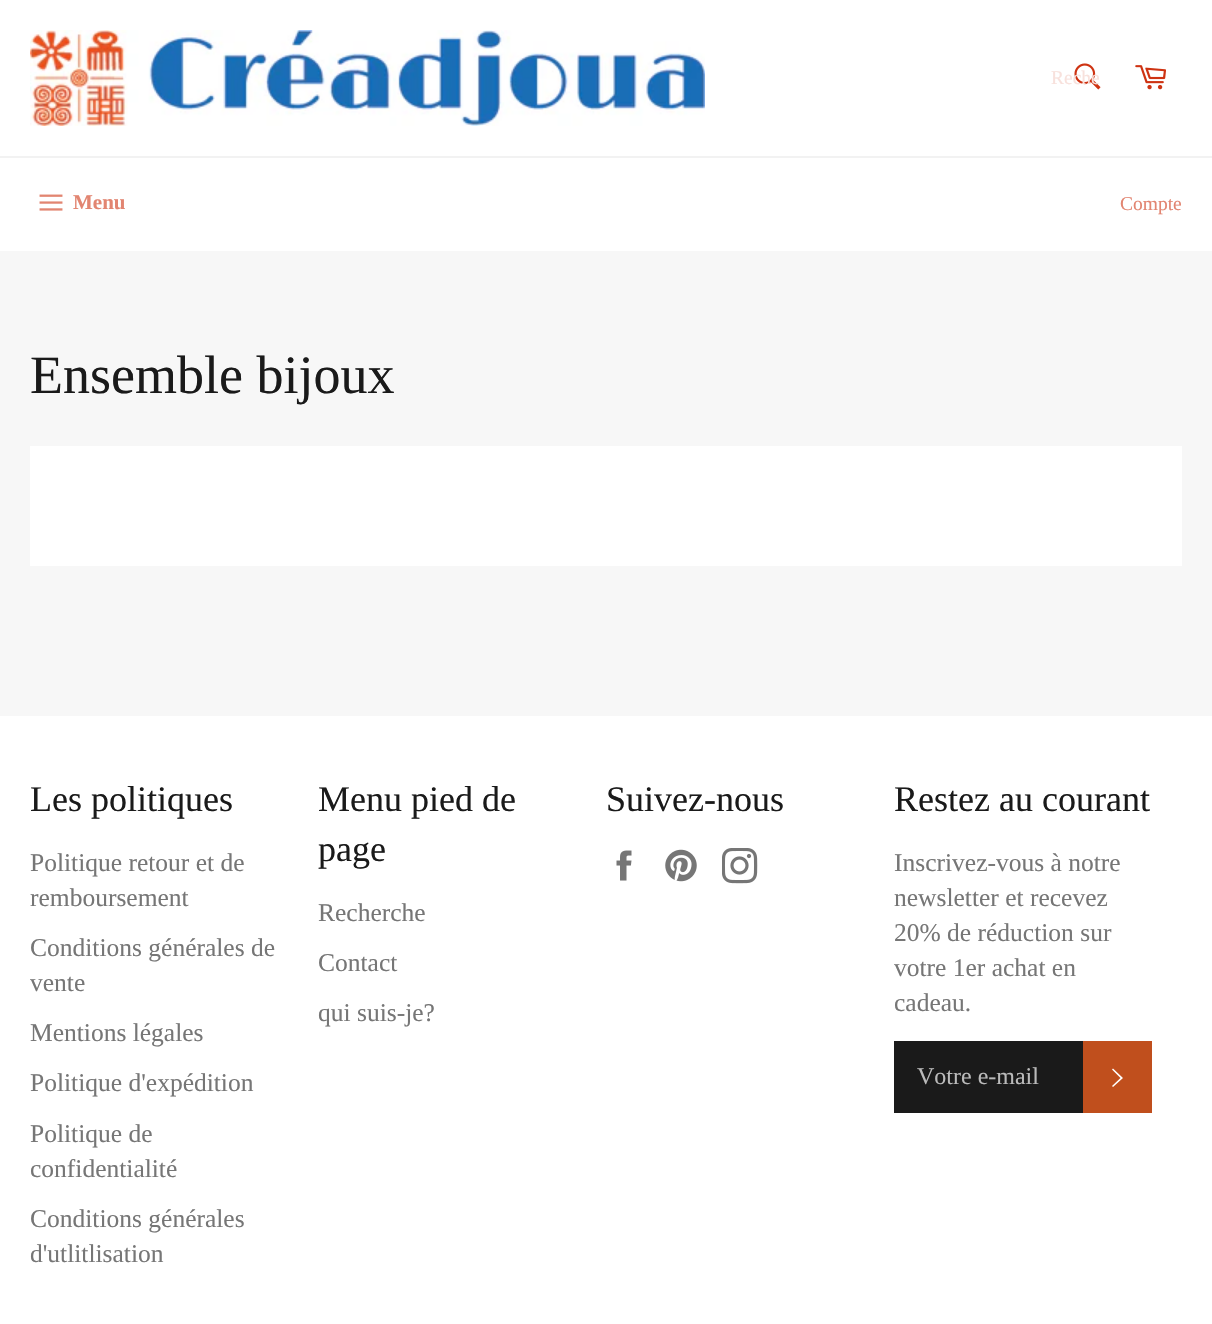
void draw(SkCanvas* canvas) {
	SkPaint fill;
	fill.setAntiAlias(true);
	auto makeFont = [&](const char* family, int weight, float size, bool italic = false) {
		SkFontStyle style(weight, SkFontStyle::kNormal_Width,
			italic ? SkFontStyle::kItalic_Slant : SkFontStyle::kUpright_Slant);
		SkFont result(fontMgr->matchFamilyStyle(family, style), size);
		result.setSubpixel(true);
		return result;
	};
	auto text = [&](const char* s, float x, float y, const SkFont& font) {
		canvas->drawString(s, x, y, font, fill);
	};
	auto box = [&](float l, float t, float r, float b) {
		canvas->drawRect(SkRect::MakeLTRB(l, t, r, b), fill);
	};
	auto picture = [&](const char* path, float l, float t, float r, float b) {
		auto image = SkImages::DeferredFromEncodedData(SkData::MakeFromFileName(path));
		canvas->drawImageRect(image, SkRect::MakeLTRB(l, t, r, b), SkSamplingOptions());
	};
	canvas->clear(0xFFF7F7F7);
	fill.setColor(0xFFFFFFFF);
	box(0, 0, 1212, 156);
	picture("image0.png", 30, 30, 705, 126);
	picture("image1.png", 1074, 63, 1101, 90);
	picture("image2.png", 1135, 65, 1166, 90);
	box(0, 158, 1212, 251);
	fill.setColor(0xFFF2F2F2);
	box(0, 156, 1212, 158);
	picture("image3.png", 39, 194, 63, 211);
	fill.setColor(0xFFFFFFFF);
	box(30, 446, 1182, 566);
	box(0, 716, 1212, 1324);
	picture("image4.png", 616, 850, 632, 881);
	picture("image5.png", 665, 849, 697, 882);
	picture("image6.png", 722, 848, 758, 884);
	fill.setColor(0xFF1A1A1A);
	box(894, 1041, 1083, 1113);
	fill.setColor(0xFFC04F1D);
	box(1083, 1041, 1152, 1113);
	fill.setColor(0xFFFFFFFF);
	canvas->drawPath(SkPathBuilder().moveTo(1112, 1069.5f).lineTo(1113, 1068.5f).lineTo(1123, 1078).lineTo(1113, 1087).lineTo(1112, 1086).lineTo(1120.5f, 1078).close().detach(), fill);
	auto font1 = makeFont("Liberation Serif", 400, 19.5f);
	fill.setColor(0xFFF8E1DC);
	text("Reche", 1051, 84, font1);
	auto font2 = makeFont("Liberation Serif", 700, 21);
	fill.setColor(0xFFE28571);
	text("Menu", 73, 209, font2);
	text("Compte", 1120, 210, font1);
	auto font3 = makeFont("Liberation Serif", 400, 54);
	fill.setColor(0xFF1A1A1A);
	text("Ensemble bijoux", 30, 393, font3);
	auto font4 = makeFont("Liberation Serif", 400, 36);
	text("Les politiques", 30, 811, font4);
	auto font5 = makeFont("Liberation Serif", 400, 25.5f);
	fill.setColor(0xFF767676);
	text("Politique retour et de", 30, 871, font5);
	text("remboursement", 30, 906, font5);
	text("Conditions générales de", 30, 956, font5);
	text("vente", 30, 991, font5);
	text("Mentions légales", 30, 1041, font5);
	text("Politique d'expédition", 30, 1091, font5);
	text("Politique de", 30, 1142, font5);
	text("confidentialité", 30, 1177, font5);
	text("Conditions générales", 30, 1227, font5);
	text("d'utlitlisation", 30, 1262, font5);
	fill.setColor(0xFF1A1A1A);
	text("Menu pied de", 318, 811, font4);
	text("page", 318, 861, font4);
	fill.setColor(0xFF767676);
	text("Recherche", 318, 921, font5);
	text("Contact", 318, 971, font5);
	text("qui suis-je?", 318, 1021, font5);
	fill.setColor(0xFF1A1A1A);
	text("Suivez-nous", 606, 811, font4);
	text("Restez au courant", 894, 811, font4);
	fill.setColor(0xFF767676);
	text("Inscrivez-vous à notre", 894, 871, font5);
	text("newsletter et recevez", 894, 906, font5);
	text("20% de réduction sur", 894, 941, font5);
	text("votre 1er achat en", 894, 976, font5);
	text("cadeau.", 894, 1011, font5);
	auto font6 = makeFont("Liberation Serif", 400, 24);
	fill.setColor(0xFFBABABA);
	text("Votre e-mail", 917, 1084, font6);
}
